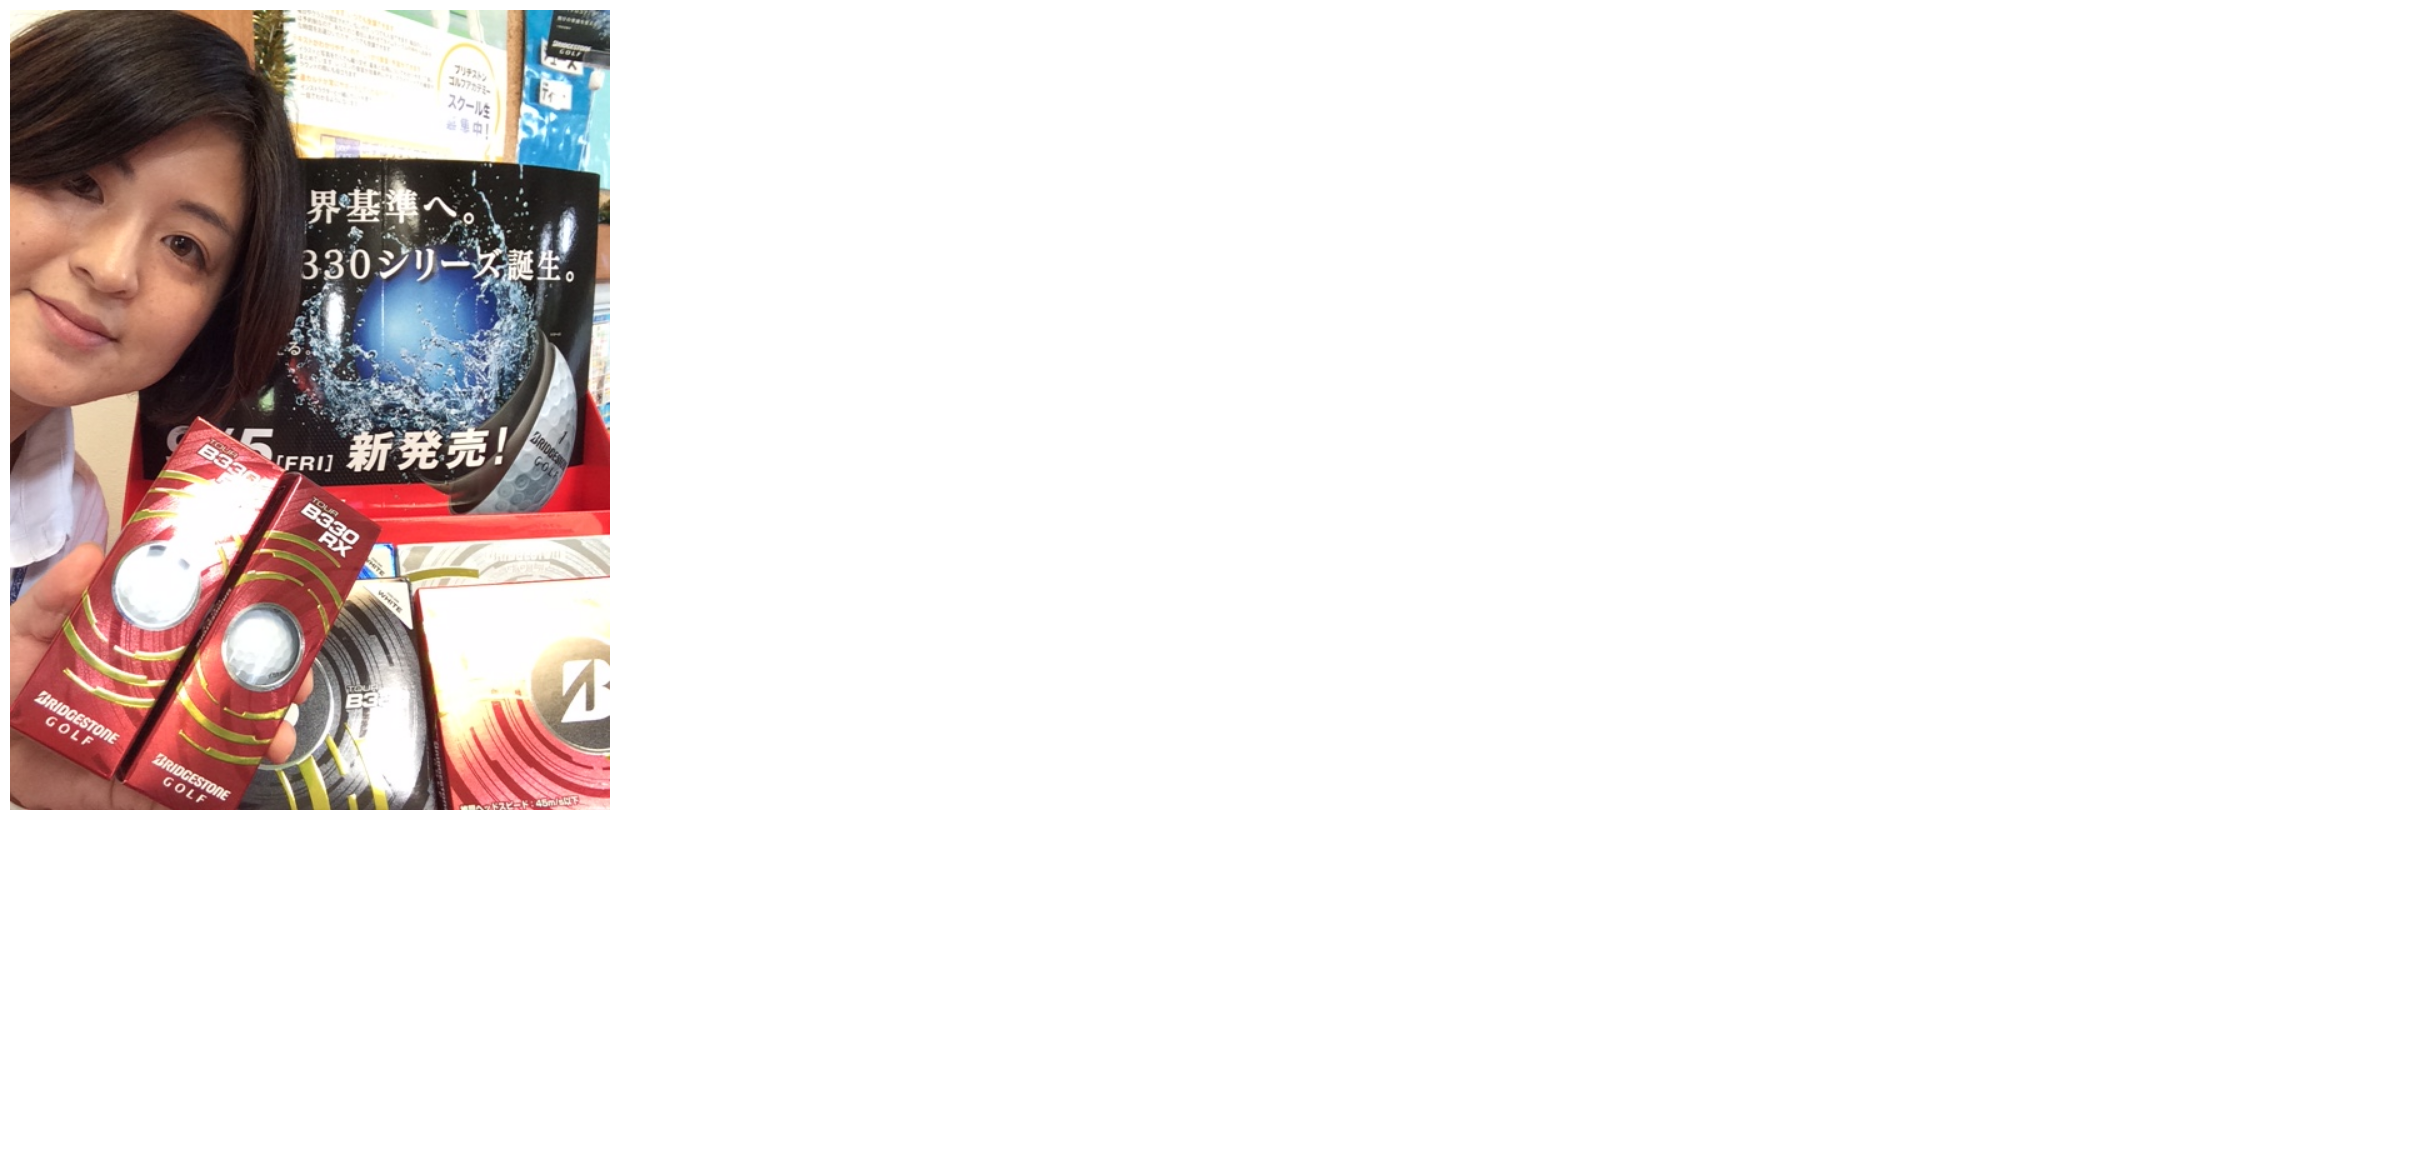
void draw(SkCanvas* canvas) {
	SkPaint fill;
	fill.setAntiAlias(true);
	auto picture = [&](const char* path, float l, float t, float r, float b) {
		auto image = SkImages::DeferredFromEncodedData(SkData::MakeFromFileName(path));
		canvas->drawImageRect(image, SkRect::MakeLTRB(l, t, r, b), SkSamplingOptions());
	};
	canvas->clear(0xFFFFFFFF);
	picture("image0.png", 10, 10, 610, 810);
}
